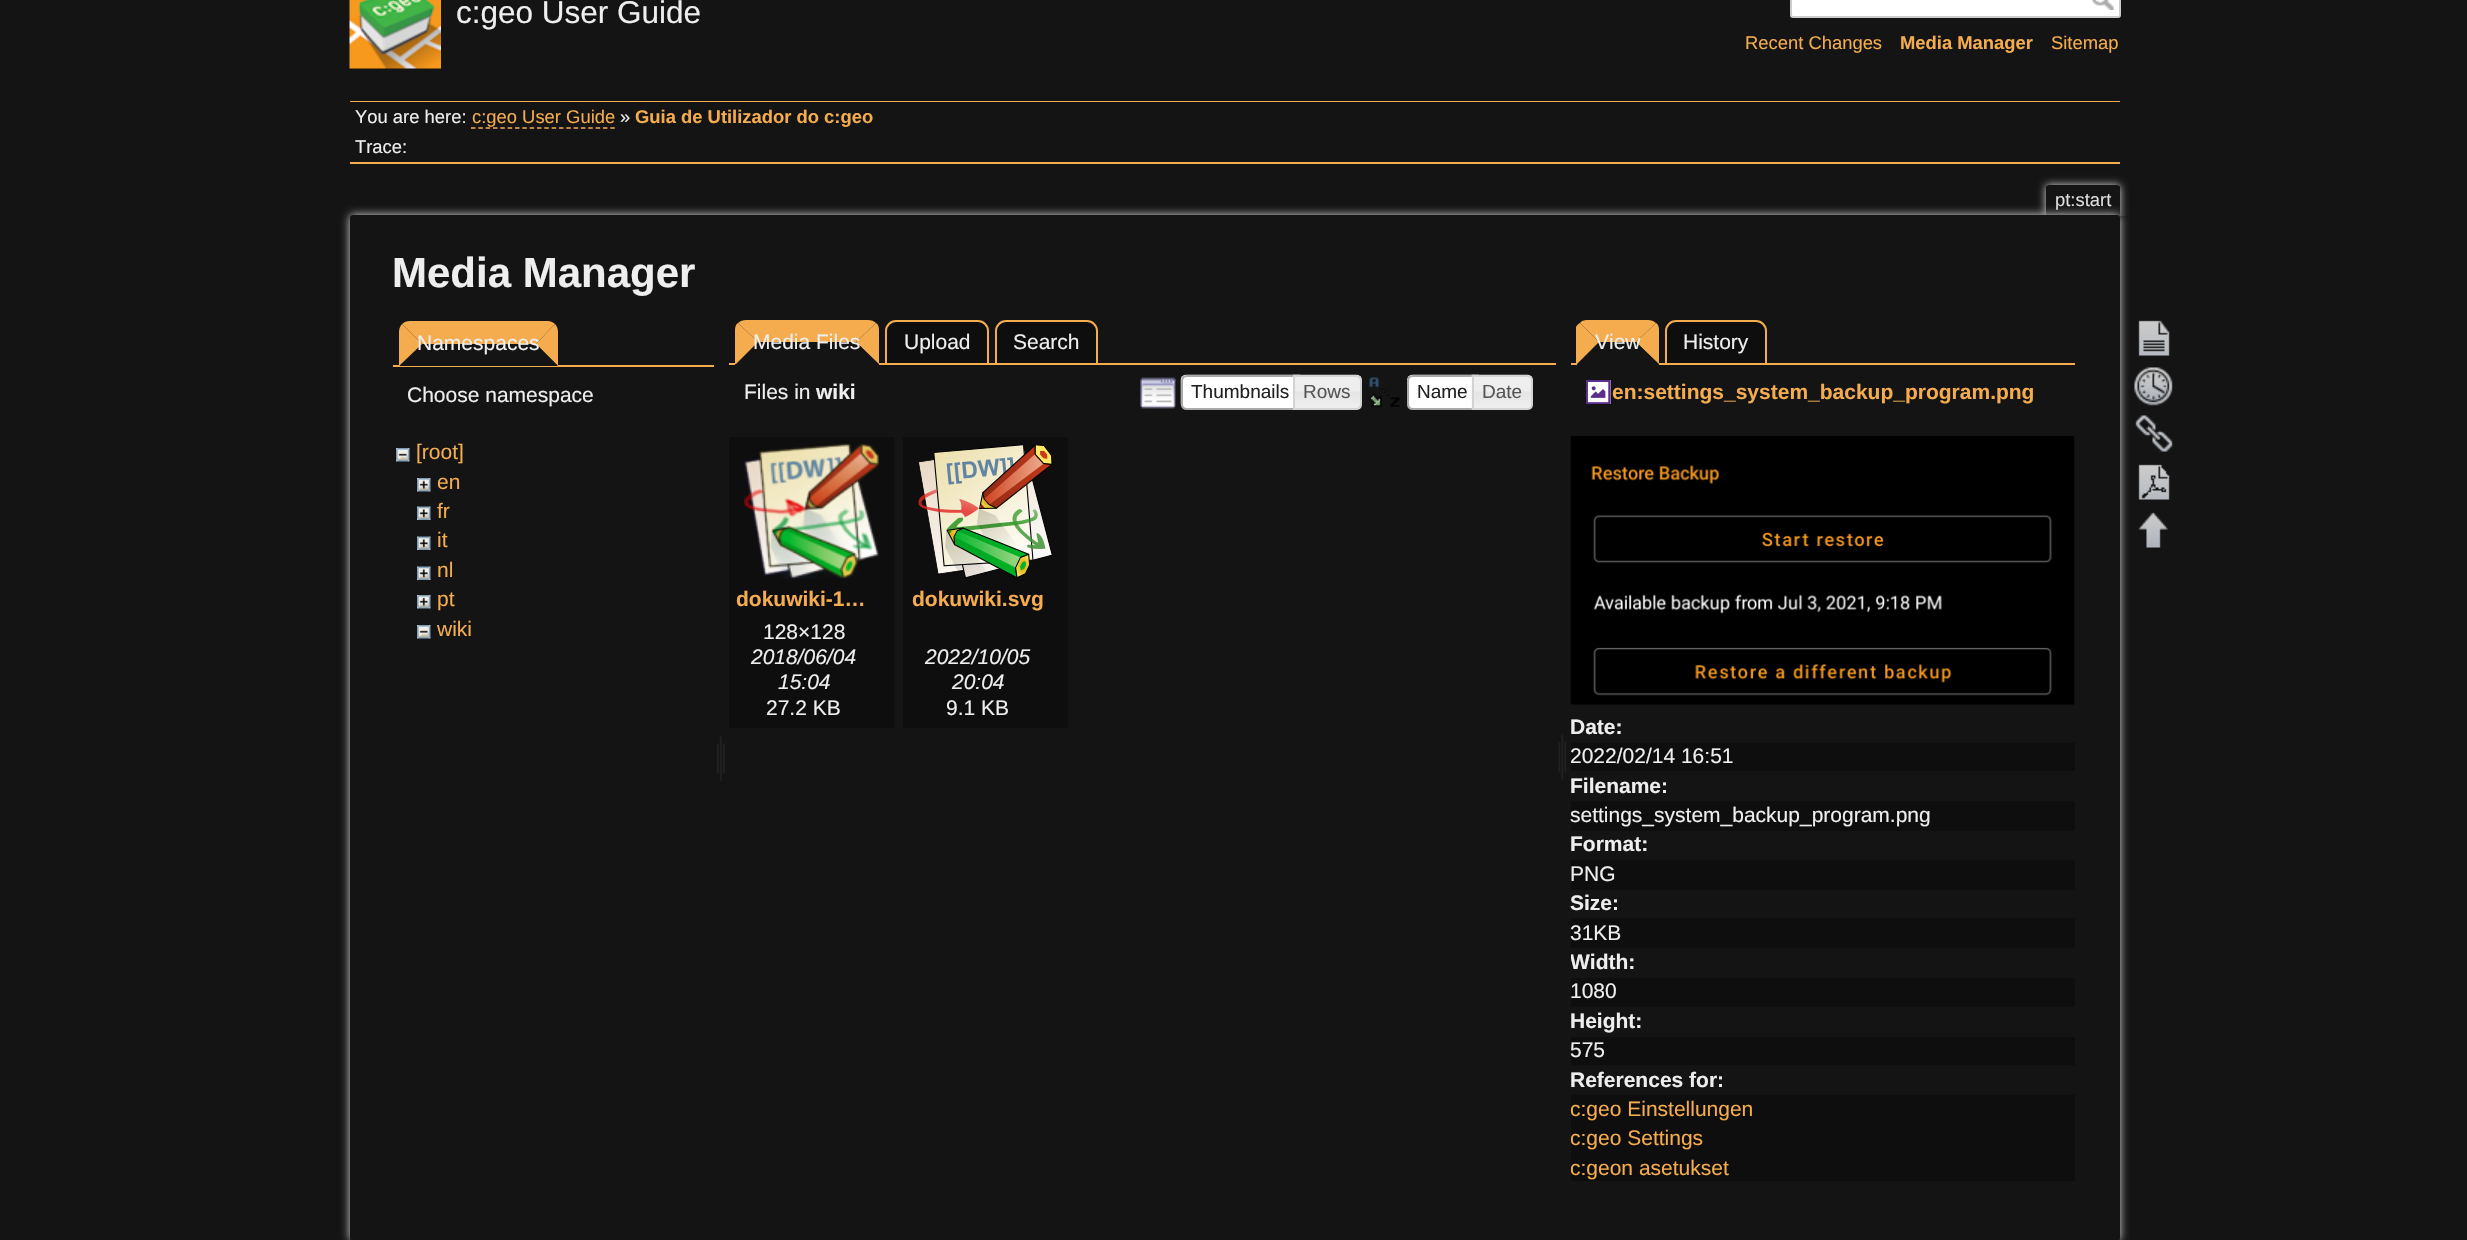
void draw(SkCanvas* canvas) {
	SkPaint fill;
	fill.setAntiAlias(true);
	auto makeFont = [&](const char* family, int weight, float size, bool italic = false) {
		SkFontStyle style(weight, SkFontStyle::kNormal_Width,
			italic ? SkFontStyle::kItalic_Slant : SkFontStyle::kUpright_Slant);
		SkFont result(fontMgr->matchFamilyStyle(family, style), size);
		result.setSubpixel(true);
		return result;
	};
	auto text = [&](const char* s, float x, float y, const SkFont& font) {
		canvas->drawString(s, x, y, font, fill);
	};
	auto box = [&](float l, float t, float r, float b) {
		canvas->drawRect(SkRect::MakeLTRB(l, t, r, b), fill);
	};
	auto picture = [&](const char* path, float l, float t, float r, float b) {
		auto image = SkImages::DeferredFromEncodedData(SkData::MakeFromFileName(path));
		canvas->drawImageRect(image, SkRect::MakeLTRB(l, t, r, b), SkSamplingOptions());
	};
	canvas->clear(0xFF141414);
	picture("image0.png", 349, 0, 441, 69);
	fill.setColor(0xFFFFFFFF);
	canvas->drawRoundRect(SkRect::MakeLTRB(1791, -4, 2120, 17), 2, 2, fill);
	fill.setStyle(SkPaint::kStroke_Style);
	fill.setStrokeWidth(2);
	fill.setColor(0xFFCCCCCC);
	canvas->drawRoundRect(SkRect::MakeLTRB(1791, -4, 2120, 17), 2, 2, fill);
	picture("image1.png", 2092, 0, 2114, 10);
	fill.setStyle(SkPaint::kFill_Style);
	fill.setColor(0xFFF4AC4E);
	box(350, 101, 2120, 102);
	fill.setStyle(SkPaint::kStroke_Style);
	fill.setStrokeWidth(1.5f);
	fill.setPathEffect(SkDashPathEffect::Make({{4.5f, 2.83f}}, 0));
	canvas->drawPath(SkPathBuilder().moveTo(471, 128).lineTo(615, 128).detach(), fill);
	fill.setPathEffect(nullptr);
	fill.setStyle(SkPaint::kFill_Style);
	box(350, 162, 2120, 164);
	canvas->save();
	canvas->clipRect(SkRect::MakeLTRB(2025, 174, 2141, 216));
	canvas->clipPath(SkPathBuilder(SkPathFillType::kEvenOdd).moveTo(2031, 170).lineTo(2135, 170).lineTo(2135, 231).lineTo(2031, 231).close().moveTo(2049, 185).lineTo(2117, 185).cubicTo(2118.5f, 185, 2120, 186.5f, 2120, 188).lineTo(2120, 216).lineTo(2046, 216).lineTo(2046, 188).cubicTo(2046, 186.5f, 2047.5f, 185, 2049, 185).close().detach(), true);
	fill.setColor(0xFFDDDDDD);
	fill.setMaskFilter(SkMaskFilter::MakeBlur(kNormal_SkBlurStyle, 4.5f));
	canvas->drawRoundRect(SkRect::MakeLTRB(2046, 185, 2120, 216), 3, 3, fill);
	fill.setMaskFilter(nullptr);
	canvas->restore();
	fill.setColor(0xFF141414);
	box(2119, 186, 2120, 216);
	box(2046, 186, 2047, 187);
	fill.setColor(0xFFDDDDDD);
	fill.setMaskFilter(SkMaskFilter::MakeBlur(kNormal_SkBlurStyle, 5));
	canvas->drawRoundRect(SkRect::MakeLTRB(350, 215, 2120, 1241), 3, 3, fill);
	fill.setMaskFilter(nullptr);
	fill.setColor(0xFF141414);
	canvas->drawRoundRect(SkRect::MakeLTRB(351, 216, 2119, 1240), 2, 2, fill);
	fill.setStyle(SkPaint::kStroke_Style);
	fill.setStrokeWidth(2);
	canvas->drawRoundRect(SkRect::MakeLTRB(351, 216, 2119, 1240), 2, 2, fill);
	fill.setStyle(SkPaint::kFill_Style);
	fill.setColor(0xFFF4AC4E);
	canvas->drawPath(SkPathBuilder().moveTo(410, 321).lineTo(548, 321).cubicTo(550, 321, 553, 322, 555, 324).lineTo(536, 344).lineTo(422, 344).lineTo(402, 324).cubicTo(404, 322, 407, 321, 410, 321).close().detach(), fill);
	box(393, 365, 714, 367);
	canvas->drawPath(SkPathBuilder().moveTo(555, 324).lineTo(536, 344).lineTo(558, 366).lineTo(558, 332).cubicTo(558, 329, 557, 326, 555, 324).close().detach(), fill);
	fill.setColor(0xFF141414);
	canvas->drawPath(SkPathBuilder().moveTo(558, 366).lineTo(536, 344).lineTo(422, 344).lineTo(399, 366).close().detach(), fill);
	fill.setColor(0xFFF4AC4E);
	canvas->drawPath(SkPathBuilder().moveTo(399, 366).lineTo(399, 332).cubicTo(399, 329, 400, 326, 402, 324).lineTo(422, 344).close().detach(), fill);
	picture("image2.png", 396, 448, 410, 462);
	picture("image3.png", 417, 478, 431, 492);
	picture("image4.png", 417, 506, 431, 520);
	picture("image4.png", 417, 536, 431, 550);
	picture("image4.png", 417, 566, 431, 580);
	picture("image3.png", 417, 595, 431, 609);
	picture("image2.png", 417, 625, 431, 639);
	picture("image5.png", 717, 736, 725, 781);
	fill.setColor(0xFF0E0E0E);
	canvas->drawPath(SkPathBuilder().moveTo(896, 321).lineTo(978, 321).cubicTo(983.5f, 321, 988, 325.5f, 988, 331).lineTo(988, 364).lineTo(886, 364).lineTo(886, 331).cubicTo(886, 325.5f, 890.5f, 321, 896, 321).close().detach(), fill);
	fill.setStyle(SkPaint::kStroke_Style);
	fill.setColor(0xFFF4AC4E);
	canvas->drawPath(SkPathBuilder().moveTo(896, 321).lineTo(978, 321).cubicTo(983.5f, 321, 988, 325.5f, 988, 331).lineTo(988, 364).lineTo(886, 364).lineTo(886, 331).cubicTo(886, 325.5f, 890.5f, 321, 896, 321).close().detach(), fill);
	fill.setStyle(SkPaint::kFill_Style);
	fill.setColor(0xFF0E0E0E);
	canvas->drawPath(SkPathBuilder().moveTo(1006, 321).lineTo(1087, 321).cubicTo(1092.5f, 321, 1097, 325.5f, 1097, 331).lineTo(1097, 364).lineTo(996, 364).lineTo(996, 331).cubicTo(996, 325.5f, 1000.5f, 321, 1006, 321).close().detach(), fill);
	fill.setStyle(SkPaint::kStroke_Style);
	fill.setColor(0xFFF4AC4E);
	canvas->drawPath(SkPathBuilder().moveTo(1006, 321).lineTo(1087, 321).cubicTo(1092.5f, 321, 1097, 325.5f, 1097, 331).lineTo(1097, 364).lineTo(996, 364).lineTo(996, 331).cubicTo(996, 325.5f, 1000.5f, 321, 1006, 321).close().detach(), fill);
	fill.setStyle(SkPaint::kFill_Style);
	box(729, 363, 1556, 365);
	fill.setColor(0xFF141414);
	canvas->drawPath(SkPathBuilder().moveTo(746, 320).lineTo(868, 320).cubicTo(874, 320, 879, 325, 879, 331).lineTo(879, 365).lineTo(735, 365).lineTo(735, 331).cubicTo(735, 325, 740, 320, 746, 320).close().detach(), fill);
	fill.setColor(0xFFF4AC4E);
	canvas->drawPath(SkPathBuilder().moveTo(746, 320).cubicTo(743, 320, 740, 321, 738, 323).lineTo(758, 342).lineTo(856, 342).lineTo(876, 323).cubicTo(874, 321, 871, 320, 868, 320).close().detach(), fill);
	canvas->drawPath(SkPathBuilder().moveTo(879, 364).lineTo(856, 342).lineTo(876, 323).cubicTo(878, 324, 879, 327, 879, 330).close().detach(), fill);
	fill.setColor(0xFF141414);
	canvas->drawPath(SkPathBuilder().moveTo(878, 364).lineTo(856, 342).lineTo(758, 342).lineTo(736, 364).close().detach(), fill);
	fill.setColor(0xFFF4AC4E);
	canvas->drawPath(SkPathBuilder().moveTo(735, 330).cubicTo(735, 327, 736, 324, 738, 323).lineTo(758, 342).lineTo(736, 364).lineTo(735, 364).close().detach(), fill);
	picture("image6.png", 1140, 377, 1176, 409);
	picture("image7.png", 1180, 374, 1301, 409);
	fill.setStyle(SkPaint::kStroke_Style);
	fill.setColor(0xFFAAAAAA);
	canvas->drawPath(SkPathBuilder().moveTo(1187, 376).lineTo(1300, 376).lineTo(1300, 409).lineTo(1187, 409).cubicTo(1184, 409, 1182, 407, 1182, 404).lineTo(1182, 381).cubicTo(1182, 378, 1184, 376, 1187, 376).close().detach(), fill);
	picture("image8.png", 1293, 374, 1362, 408);
	fill.setColor(0xFFD3D3D3);
	canvas->drawPath(SkPathBuilder().moveTo(1294, 376).lineTo(1356, 376).cubicTo(1359, 376, 1361, 378, 1361, 381).lineTo(1361, 404).cubicTo(1361, 407, 1359, 409, 1356, 409).lineTo(1294, 409).close().detach(), fill);
	picture("image9.png", 1368, 377, 1400, 407);
	picture("image10.png", 1407, 374, 1479, 408);
	fill.setColor(0xFFAAAAAA);
	canvas->drawPath(SkPathBuilder().moveTo(1413, 376).lineTo(1478, 376).lineTo(1478, 409).lineTo(1413, 409).cubicTo(1410, 409, 1408, 407, 1408, 404).lineTo(1408, 381).cubicTo(1408, 378, 1410, 376, 1413, 376).close().detach(), fill);
	picture("image11.png", 1471, 374, 1533, 409);
	fill.setColor(0xFFD3D3D3);
	canvas->drawPath(SkPathBuilder().moveTo(1473, 376).lineTo(1527, 376).cubicTo(1530, 376, 1532, 378, 1532, 381).lineTo(1532, 404).cubicTo(1532, 407, 1530, 409, 1527, 409).lineTo(1473, 409).close().detach(), fill);
	fill.setStyle(SkPaint::kFill_Style);
	fill.setColor(0xFF0E0E0E);
	box(729, 437, 894, 728);
	picture("image12.png", 744, 443, 879, 579);
	box(903, 437, 1068, 728);
	picture("image13.png", 918, 444, 1053, 579);
	picture("image14.png", 1558, 734, 1566, 780);
	canvas->drawPath(SkPathBuilder().moveTo(1676, 321).lineTo(1756, 321).cubicTo(1761.5f, 321, 1766, 325.5f, 1766, 331).lineTo(1766, 364).lineTo(1666, 364).lineTo(1666, 331).cubicTo(1666, 325.5f, 1670.5f, 321, 1676, 321).close().detach(), fill);
	fill.setStyle(SkPaint::kStroke_Style);
	fill.setColor(0xFFF4AC4E);
	canvas->drawPath(SkPathBuilder().moveTo(1676, 321).lineTo(1756, 321).cubicTo(1761.5f, 321, 1766, 325.5f, 1766, 331).lineTo(1766, 364).lineTo(1666, 364).lineTo(1666, 331).cubicTo(1666, 325.5f, 1670.5f, 321, 1676, 321).close().detach(), fill);
	fill.setStyle(SkPaint::kFill_Style);
	box(1571, 363, 2075, 365);
	fill.setColor(0xFF141414);
	canvas->drawPath(SkPathBuilder().moveTo(1588, 320).lineTo(1648, 320).cubicTo(1654, 320, 1659, 325, 1659, 331).lineTo(1659, 365).lineTo(1577, 365).lineTo(1577, 331).cubicTo(1577, 325, 1582, 320, 1588, 320).close().detach(), fill);
	fill.setColor(0xFFF4AC4E);
	canvas->drawPath(SkPathBuilder().moveTo(1587, 320).cubicTo(1584, 320, 1581, 321, 1580, 323).lineTo(1599, 342).lineTo(1636, 342).lineTo(1656, 323).cubicTo(1654, 321, 1651, 320, 1648, 320).close().detach(), fill);
	canvas->drawPath(SkPathBuilder().moveTo(1659, 364).lineTo(1636, 342).lineTo(1656, 323).cubicTo(1658, 324, 1659, 327, 1659, 330).close().detach(), fill);
	fill.setColor(0xFF141414);
	canvas->drawPath(SkPathBuilder().moveTo(1658, 364).lineTo(1636, 342).lineTo(1599, 342).lineTo(1577, 364).close().detach(), fill);
	fill.setColor(0xFFF4AC4E);
	canvas->drawPath(SkPathBuilder().moveTo(1576, 327).cubicTo(1577, 325, 1578, 324, 1580, 323).lineTo(1599, 342).lineTo(1577, 364).lineTo(1576, 364).close().detach(), fill);
	picture("image15.png", 1586, 380, 1611, 404);
	picture("image16.png", 1570, 436, 2075, 705);
	fill.setColor(0xFF0E0E0E);
	box(1571, 743, 2075, 771);
	box(1571, 801, 2075, 831);
	box(1571, 860, 2075, 890);
	box(1571, 918, 2075, 948);
	box(1571, 978, 2075, 1007);
	box(1571, 1037, 2075, 1065);
	box(1571, 1095, 2075, 1181);
	picture("image17.png", 2138, 320, 2170, 356);
	picture("image18.png", 2134, 367, 2173, 406);
	picture("image19.png", 2135, 415, 2173, 452);
	picture("image20.png", 2138, 464, 2170, 500);
	picture("image21.png", 2138, 512, 2168, 548);
	auto font1 = makeFont("Liberation Sans", 400, 31.5f);
	fill.setColor(0xFFEEEEEE);
	text("c:geo User Guide", 456, 23, font1);
	auto font2 = makeFont("Liberation Sans", 400, 18.4f);
	fill.setColor(0xFFF4AC4E);
	text("Recent Changes", 1745, 49, font2);
	auto font3 = makeFont("Liberation Sans", 700, 18.4f);
	text("Media Manager", 1900, 49, font3);
	text("Sitemap", 2051, 49, font2);
	fill.setColor(0xFFEEEEEE);
	text("You are here:", 355, 123, font2);
	fill.setColor(0xFFF4AC4E);
	text("c:geo User Guide", 472, 123, font2);
	fill.setColor(0xFFEEEEEE);
	text("»", 620, 123, font2);
	fill.setColor(0xFFF4AC4E);
	text("Guia de Utilizador do c:geo", 635, 123, font3);
	fill.setColor(0xFFEEEEEE);
	text("Trace:", 355, 153, font2);
	fill.setColor(0xFFDDDDDD);
	text("pt:start", 2055, 206, font2);
	auto font4 = makeFont("Liberation Sans", 700, 42);
	fill.setColor(0xFFEEEEEE);
	text("Media Manager", 392, 287, font4);
	auto font5 = makeFont("Liberation Sans", 400, 21);
	text("Namespaces", 417, 350, font5);
	text("Choose namespace", 407, 402, font5);
	fill.setColor(0xFFF4AC4E);
	text("[root]", 416, 459, font5);
	text("en", 437, 489, font5);
	text("fr", 437, 518, font5);
	text("it", 437, 547, font5);
	text("nl", 437, 577, font5);
	text("pt", 437, 606, font5);
	text("wiki", 437, 636, font5);
	fill.setColor(0xFFEEEEEE);
	text("Media Files", 753, 349, font5);
	text("Upload", 904, 349, font5);
	text("Search", 1013, 349, font5);
	text("Files in", 744, 399, font5);
	auto font6 = makeFont("Liberation Sans", 700, 21);
	text("wiki", 816, 399, font6);
	auto font7 = makeFont("Liberation Sans", 400, 19);
	fill.setColor(0xFF212121);
	text("Thumbnails", 1191, 398, font7);
	fill.setColor(0xFF555555);
	text("Rows", 1303, 398, font7);
	fill.setColor(0xFF212121);
	text("Name", 1417, 398, font7);
	fill.setColor(0xFF555555);
	text("Date", 1482, 398, font7);
	fill.setColor(0xFFF4AC4E);
	text("dokuwiki-1…", 736, 606, font6);
	fill.setColor(0xFFEEEEEE);
	text("128×128", 763, 639, font5);
	auto font8 = makeFont("Liberation Sans", 400, 21, true);
	text("2018/06/04", 751, 664, font8);
	text("15:04", 778, 689, font8);
	text("27.2 KB", 766, 715, font5);
	fill.setColor(0xFFF4AC4E);
	text("dokuwiki.svg", 912, 606, font6);
	fill.setColor(0xFFEEEEEE);
	text("2022/10/05", 925, 664, font8);
	text("20:04", 952, 689, font8);
	text("9.1 KB", 946, 715, font5);
	text("View", 1595, 349, font5);
	text("History", 1683, 349, font5);
	fill.setColor(0xFFF4AC4E);
	text("en:settings_system_backup_program.png", 1612, 399, font6);
	fill.setColor(0xFFEEEEEE);
	text("Date:", 1570, 734, font6);
	text("2022/02/14 16:51", 1570, 763, font5);
	text("Filename:", 1570, 793, font6);
	text("settings_system_backup_program.png", 1570, 822, font5);
	text("Format:", 1570, 851, font6);
	text("PNG", 1570, 881, font5);
	text("Size:", 1570, 910, font6);
	text("31KB", 1570, 940, font5);
	canvas->save();
	canvas->clipRect(SkRect::MakeLTRB(1571, 437, 2075, 1181));
	text("Width:", 1570, 969, font6);
	canvas->restore();
	text("1080", 1570, 998, font5);
	text("Height:", 1570, 1028, font6);
	text("575", 1570, 1057, font5);
	text("References for:", 1570, 1087, font6);
	fill.setColor(0xFFF4AC4E);
	text("c:geo Einstellungen", 1570, 1116, font5);
	text("c:geo Settings", 1570, 1145, font5);
	text("c:geon asetukset", 1570, 1175, font5);
}
